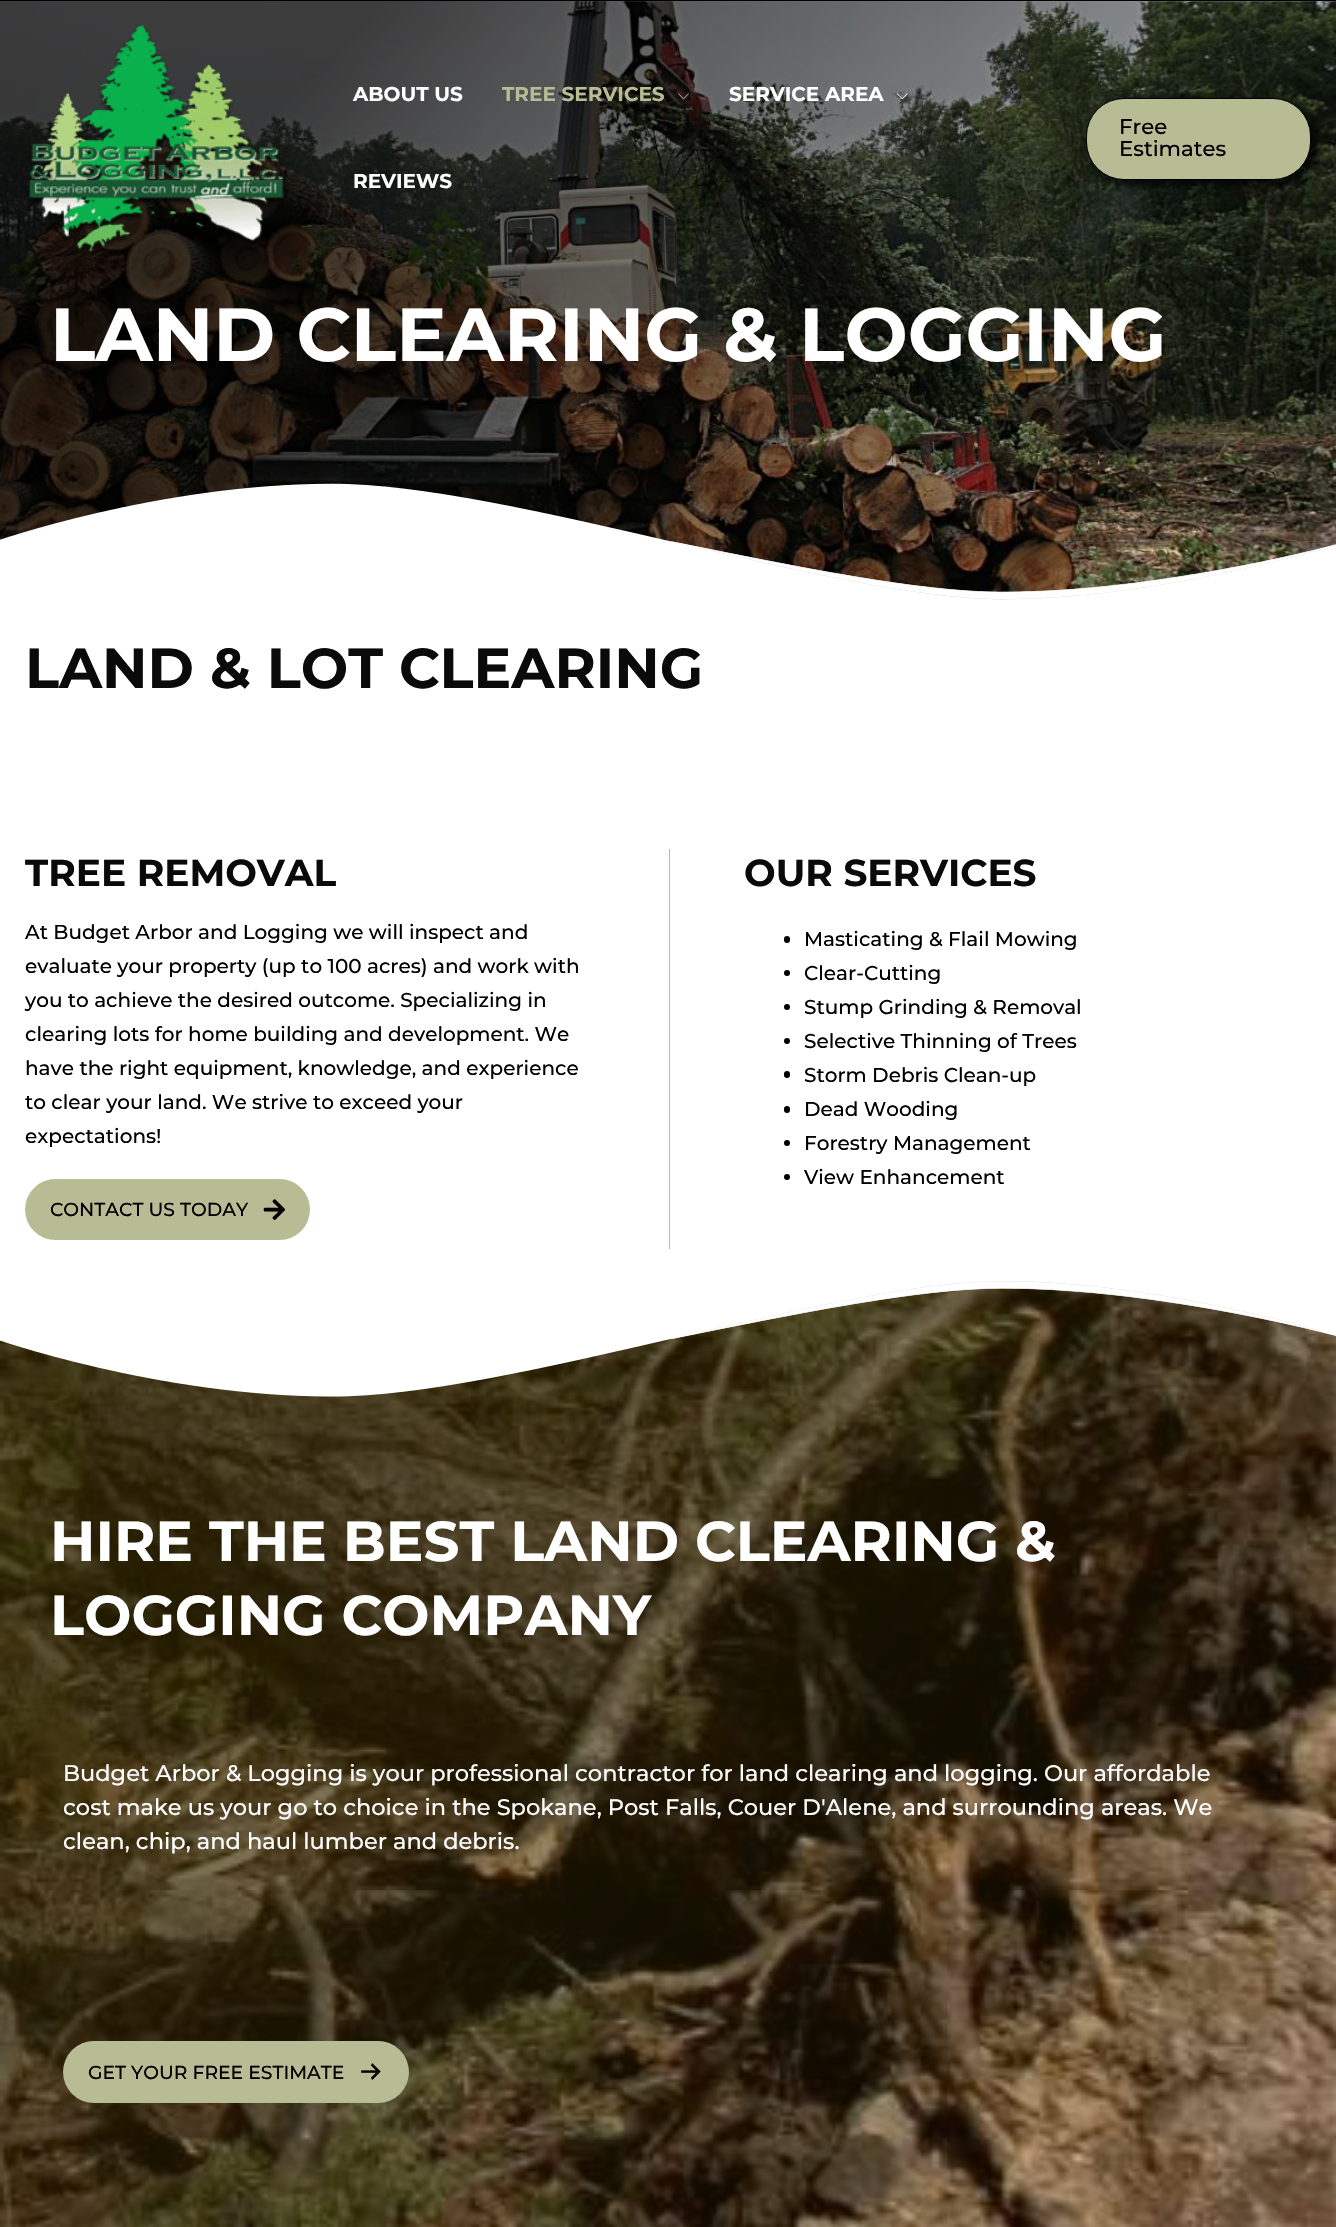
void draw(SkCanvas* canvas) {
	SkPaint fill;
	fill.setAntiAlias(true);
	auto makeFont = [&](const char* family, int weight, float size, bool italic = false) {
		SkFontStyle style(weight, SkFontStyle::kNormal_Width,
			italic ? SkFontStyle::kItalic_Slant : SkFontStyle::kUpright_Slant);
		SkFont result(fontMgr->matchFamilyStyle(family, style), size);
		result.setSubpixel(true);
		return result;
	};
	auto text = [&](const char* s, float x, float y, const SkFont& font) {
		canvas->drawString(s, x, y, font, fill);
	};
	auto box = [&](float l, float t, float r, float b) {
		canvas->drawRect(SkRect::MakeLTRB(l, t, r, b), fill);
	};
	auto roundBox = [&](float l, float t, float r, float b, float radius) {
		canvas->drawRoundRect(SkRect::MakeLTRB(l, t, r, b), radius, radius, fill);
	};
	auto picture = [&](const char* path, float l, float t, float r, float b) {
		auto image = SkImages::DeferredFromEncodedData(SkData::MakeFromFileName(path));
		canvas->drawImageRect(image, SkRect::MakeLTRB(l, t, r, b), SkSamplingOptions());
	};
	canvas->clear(0xFFFFFFFF);
	fill.setColor(0xFF000000);
	box(0, 0, 1336, 1);
	picture("image3.png", 0, 1, 1336, 600);
	{
		const SkColor colors[] = {0x00000000, 0xBF000000};
		const float stops[] = {0, 0.8f};
		const SkPoint ends[] = {{1153, 789}, {183, -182}};
		fill.setShader(SkGradientShader::MakeLinear(ends, colors, stops, 2, SkTileMode::kClamp));
		fill.setAlpha(255);
	}
	box(0, 1, 1336, 600);
	picture("image0.png", 28, 25, 284, 253);
	picture("image1.png", 678, 93, 689, 100);
	picture("image2.png", 896, 93, 908, 100);
	fill.setShader(nullptr);
	fill.setColor(0xA3000000);
	fill.setMaskFilter(SkMaskFilter::MakeBlur(kNormal_SkBlurStyle, 3));
	canvas->drawRoundRect(SkRect::MakeLTRB(1088, 99, 1318, 186), 40, 40, fill);
	fill.setMaskFilter(nullptr);
	fill.setColor(0xFFB7BC94);
	canvas->drawRoundRect(SkRect::MakeLTRB(1086.5f, 98.5f, 1310.5f, 179.5f), 37.5f, 37.5f, fill);
	fill.setStyle(SkPaint::kStroke_Style);
	fill.setStrokeWidth(1);
	fill.setColor(0xFF000000);
	canvas->drawRoundRect(SkRect::MakeLTRB(1086.5f, 98.5f, 1310.5f, 179.5f), 37.5f, 37.5f, fill);
	picture("image4.png", 0, 483, 1336, 607);
	fill.setStyle(SkPaint::kFill_Style);
	fill.setColor(0xFFB7BC94);
	roundBox(25, 1179, 310, 1240, 30.5f);
	picture("image5.png", 263, 1199, 286, 1220);
	box(669, 849, 670, 1249);
	fill.setColor(0xFF000000);
	roundBox(784, 936, 790, 943, 3);
	canvas->drawCircle(787, 973, 3, fill);
	canvas->drawCircle(787, 1007, 3, fill);
	canvas->drawCircle(787, 1041, 3, fill);
	roundBox(784, 1071, 790, 1078, 3);
	roundBox(784, 1106, 790, 1113, 3);
	canvas->drawCircle(787, 1143, 3, fill);
	canvas->drawCircle(787, 1177, 3, fill);
	picture("image6.png", 0, 1281, 1336, 2227);
	{
		const SkColor colors[] = {0x002B2100, 0xBF2B2100};
		const float stops[] = {0, 0.8f};
		const SkPoint ends[] = {{1281, 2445}, {55, 1219}};
		fill.setShader(SkGradientShader::MakeLinear(ends, colors, stops, 2, SkTileMode::kClamp));
		fill.setAlpha(255);
	}
	box(0, 1281, 1336, 2227);
	picture("image7.png", 0, 1273, 1336, 1397);
	fill.setShader(nullptr);
	fill.setColor(0xFFB7BC94);
	roundBox(63, 2041, 409, 2103, 31);
	picture("image8.png", 361, 2063, 381, 2080);
	auto font1 = makeFont("Montserrat", 700, 20);
	fill.setColor(0xFFFFFFFF);
	text("ABOUT US", 353, 101, font1);
	fill.setColor(0xFFB7BC94);
	text("TREE SERVICES", 502, 101, font1);
	fill.setColor(0xFFFFFFFF);
	text("SERVICE AREA", 729, 101, font1);
	text("REVIEWS", 353, 188, font1);
	auto font2 = makeFont("Montserrat", 500, 21.25f);
	fill.setColor(0xFF000000);
	text("Free", 1119, 134, font2);
	text("Estimates", 1119, 156, font2);
	auto font3 = makeFont("Montserrat", 700, 75);
	fill.setColor(0xFFFFFFFF);
	text("LAND CLEARING & LOGGING", 50, 361, font3);
	auto font4 = makeFont("Montserrat", 700, 56.25f);
	fill.setColor(0xFF0A0A0A);
	text("LAND & LOT CLEARING", 25, 688, font4);
	auto font5 = makeFont("Montserrat", 700, 37.5f);
	text("TREE REMOVAL", 25, 886, font5);
	auto font6 = makeFont("Montserrat", 500, 20);
	fill.setColor(0xFF000000);
	text("At Budget Arbor and Logging we will inspect and", 25, 939, font6);
	text("evaluate your property (up to 100 acres) and work with", 25, 973, font6);
	text("you to achieve the desired outcome. Specializing in", 25, 1007, font6);
	text("clearing lots for home building and development. We", 25, 1041, font6);
	text("have the right equipment, knowledge, and experience", 25, 1075, font6);
	text("to clear your land. We strive to exceed your", 25, 1109, font6);
	text("expectations!", 25, 1143, font6);
	auto font7 = makeFont("Montserrat", 500, 18.75f);
	text("CONTACT US TODAY", 50, 1216, font7);
	fill.setColor(0xFF0A0A0A);
	text("OUR SERVICES", 744, 886, font5);
	fill.setColor(0xFF000000);
	text("Masticating & Flail Mowing", 804, 946, font6);
	text("Clear-Cutting", 804, 980, font6);
	text("Stump Grinding & Removal", 804, 1014, font6);
	text("Selective Thinning of Trees", 804, 1048, font6);
	text("Storm Debris Clean-up", 804, 1082, font6);
	text("Dead Wooding", 804, 1116, font6);
	text("Forestry Management", 804, 1150, font6);
	text("View Enhancement", 804, 1184, font6);
	fill.setColor(0xFFFFFFFF);
	text("HIRE THE BEST LAND CLEARING &", 50, 1561, font4);
	text("LOGGING COMPANY", 50, 1635, font4);
	auto font8 = makeFont("Montserrat", 500, 22.5f);
	text("Budget Arbor & Logging is your professional contractor for land clearing and logging. Our affordable", 63, 1781, font8);
	text("cost make us your go to choice in the Spokane, Post Falls, Couer D'Alene, and surrounding areas. We", 63, 1815, font8);
	text("clean, chip, and haul lumber and debris.", 63, 1849, font8);
	fill.setColor(0xFF000000);
	text("GET YOUR FREE ESTIMATE", 88, 2079, font7);
}
